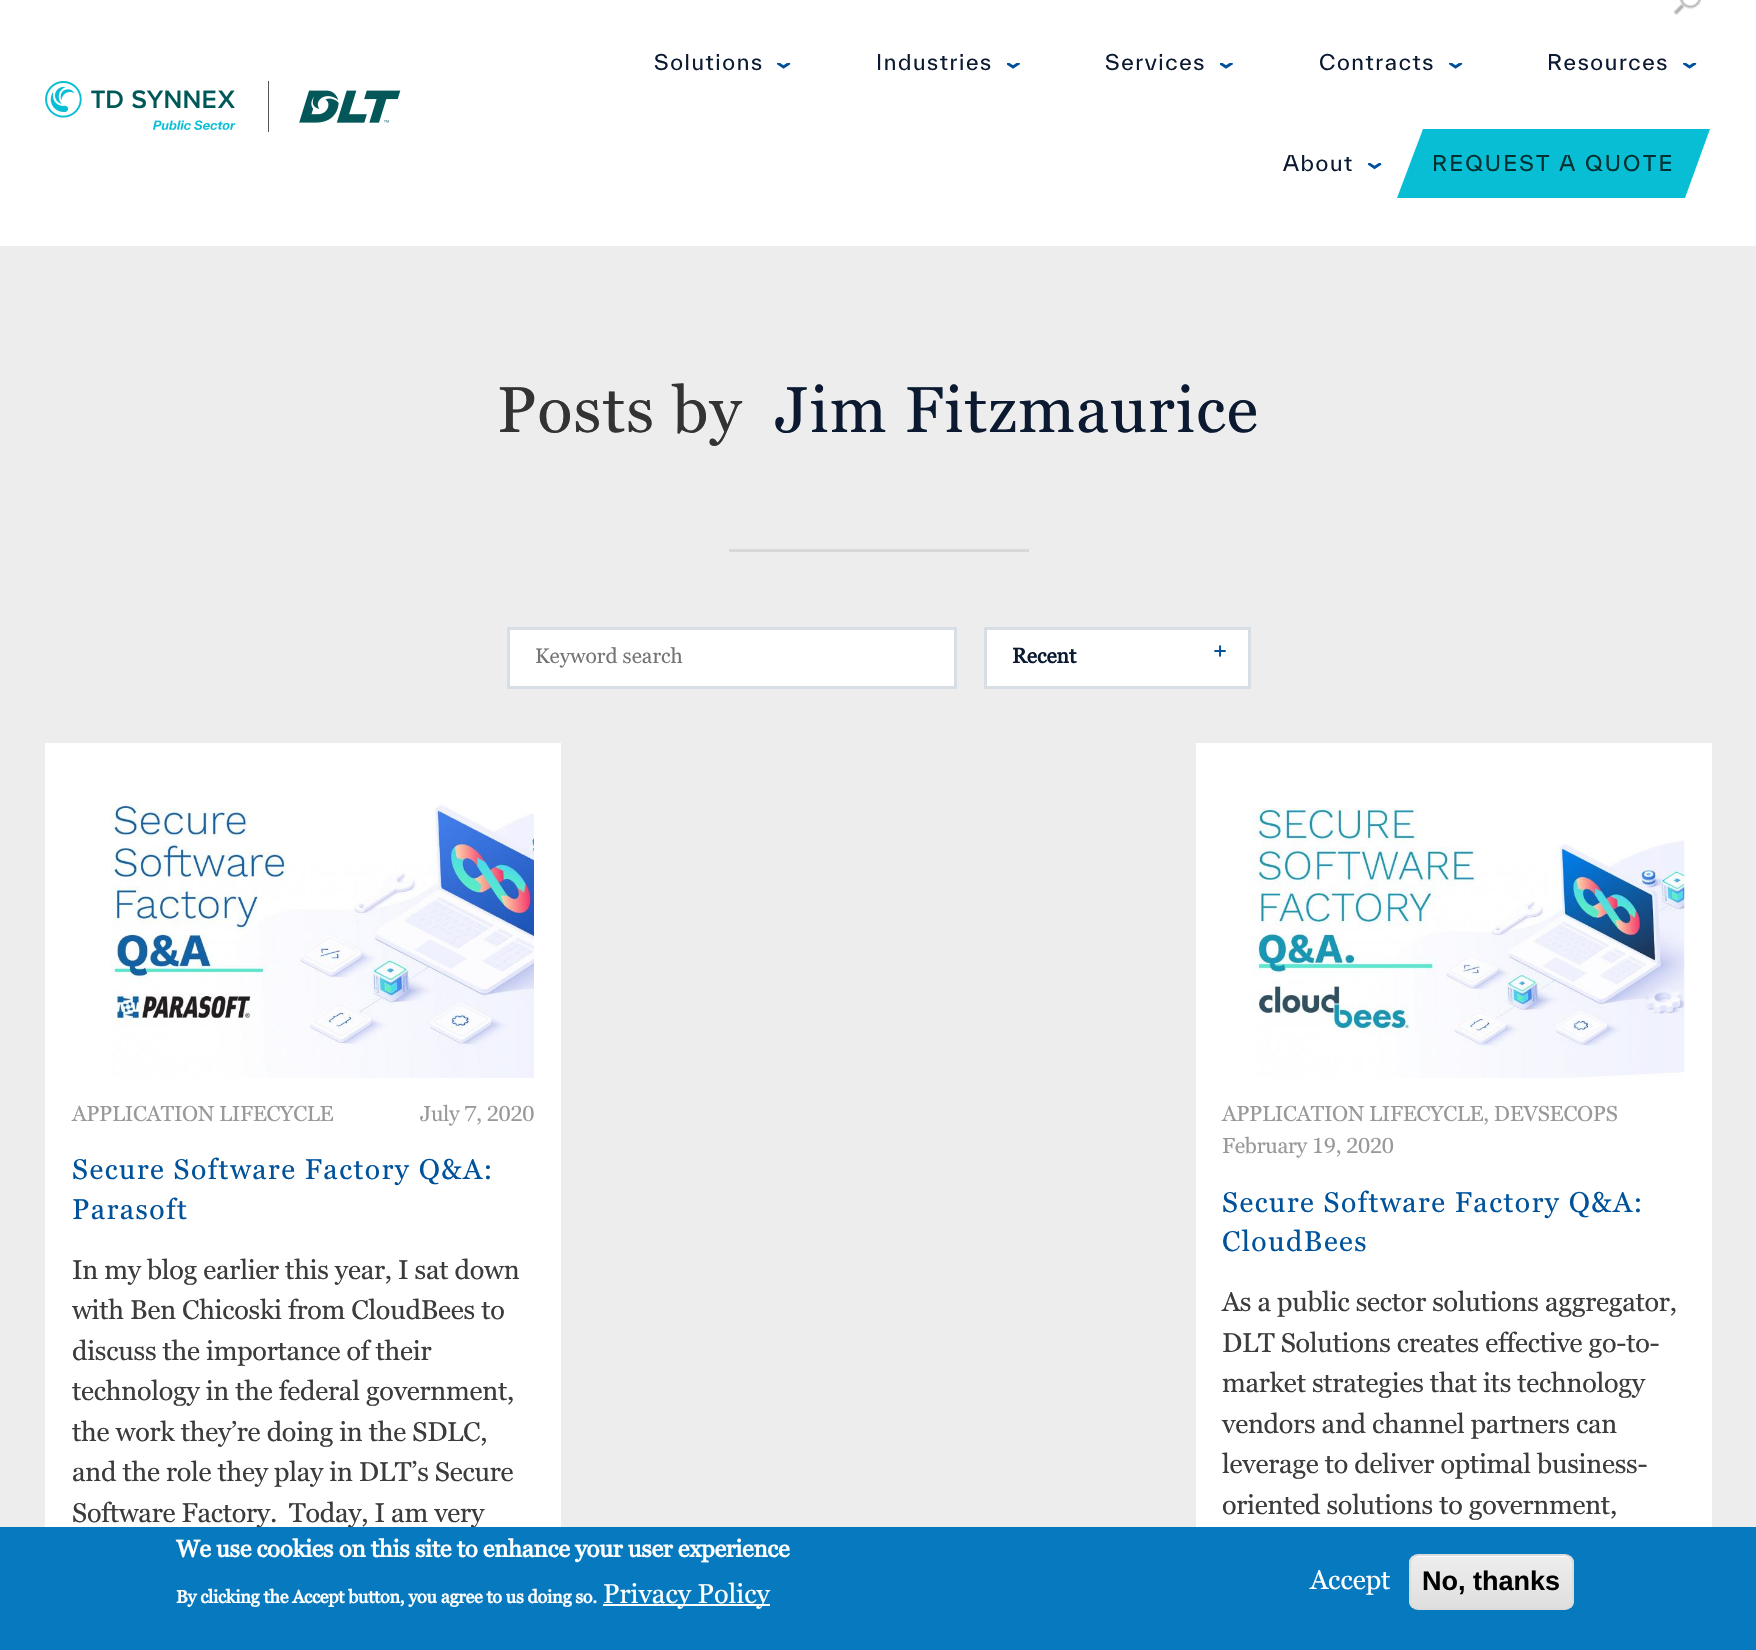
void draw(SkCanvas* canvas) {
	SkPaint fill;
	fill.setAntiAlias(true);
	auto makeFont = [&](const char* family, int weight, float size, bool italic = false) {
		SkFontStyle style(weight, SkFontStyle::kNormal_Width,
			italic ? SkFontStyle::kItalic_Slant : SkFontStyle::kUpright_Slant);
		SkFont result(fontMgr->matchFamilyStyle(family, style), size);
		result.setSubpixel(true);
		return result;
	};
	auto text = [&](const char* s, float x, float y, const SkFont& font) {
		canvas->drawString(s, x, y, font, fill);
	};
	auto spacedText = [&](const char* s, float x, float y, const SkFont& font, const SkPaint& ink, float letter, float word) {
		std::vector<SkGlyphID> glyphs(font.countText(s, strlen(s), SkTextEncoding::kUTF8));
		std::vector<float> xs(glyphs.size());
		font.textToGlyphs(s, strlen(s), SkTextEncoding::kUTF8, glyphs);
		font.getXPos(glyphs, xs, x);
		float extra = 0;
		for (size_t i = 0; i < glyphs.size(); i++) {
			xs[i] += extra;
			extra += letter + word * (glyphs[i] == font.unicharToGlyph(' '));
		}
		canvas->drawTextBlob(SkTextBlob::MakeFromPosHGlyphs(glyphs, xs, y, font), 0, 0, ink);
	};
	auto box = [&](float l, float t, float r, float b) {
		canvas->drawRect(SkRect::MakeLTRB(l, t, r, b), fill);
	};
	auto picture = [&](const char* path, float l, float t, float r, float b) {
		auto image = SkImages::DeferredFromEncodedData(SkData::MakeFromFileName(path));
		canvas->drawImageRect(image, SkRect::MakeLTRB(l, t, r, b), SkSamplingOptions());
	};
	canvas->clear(0xFFEDEDED);
	fill.setColor(0xFFFFFFFF);
	box(0, 0, 1756, 246);
	picture("image0.png", 45, 81, 401, 132);
	picture("image1.png", 1674, 0, 1701, 15);
	picture("image2.png", 777, 63, 791, 69);
	picture("image3.png", 1007, 63, 1020, 69);
	picture("image4.png", 1220, 63, 1233, 69);
	picture("image2.png", 1449, 63, 1463, 69);
	picture("image2.png", 1683, 63, 1697, 69);
	picture("image5.png", 1368, 163, 1382, 170);
	fill.setColor(0xFF08BED5);
	canvas->drawPath(SkPathBuilder().moveTo(1423, 129).lineTo(1710, 129).lineTo(1685, 198).lineTo(1397, 198).close().detach(), fill);
	fill.setColor(0xFFD8D8D8);
	box(729, 549, 1029, 552);
	fill.setColor(0xFFFFFFFF);
	canvas->drawRect(SkRect::MakeLTRB(508.5f, 628.5f, 955.5f, 687.5f), fill);
	fill.setStyle(SkPaint::kStroke_Style);
	fill.setStrokeWidth(3);
	fill.setColor(0xFFD8DEE5);
	canvas->drawRect(SkRect::MakeLTRB(508.5f, 628.5f, 955.5f, 687.5f), fill);
	fill.setStyle(SkPaint::kFill_Style);
	fill.setColor(0xFFFFFFFF);
	canvas->drawRect(SkRect::MakeLTRB(985.5f, 628.5f, 1249.5f, 687.5f), fill);
	fill.setStyle(SkPaint::kStroke_Style);
	fill.setColor(0xFFD8DEE5);
	canvas->drawRect(SkRect::MakeLTRB(985.5f, 628.5f, 1249.5f, 687.5f), fill);
	fill.setStyle(SkPaint::kFill_Style);
	fill.setColor(0xFFFFFFFF);
	box(45, 743, 561, 1527);
	picture("image6.png", 110, 800, 534, 1078);
	box(1196, 743, 1712, 1527);
	picture("image7.png", 1251, 808, 1685, 1078);
	auto font1 = makeFont("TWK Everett", 400, 21);
	fill.setColor(0xFF0B1A31);
	spacedText("Solutions", 654, 70, font1, fill, 1.6f, 0);
	spacedText("Industries", 876, 70, font1, fill, 1.6f, 0);
	spacedText("Services", 1105, 70, font1, fill, 1.6f, 0);
	spacedText("Contracts", 1319, 70, font1, fill, 1.6f, 0);
	spacedText("Resources", 1547, 70, font1, fill, 1.6f, 0);
	spacedText("About", 1283, 171, font1, fill, 1.6f, 0);
	fill.setColor(0xFF003031);
	spacedText("REQUEST A QUOTE", 1432, 171, font1, fill, 2.25f, 0);
	auto font2 = makeFont("Georgia", 400, 64.5f);
	fill.setColor(0xFF333333);
	spacedText("Posts by", 497, 432, font2, fill, 1.25f, 0);
	fill.setColor(0xFF0B1A31);
	spacedText("Jim Fitzmaurice", 775, 432, font2, fill, 1.25f, 0);
	auto font3 = makeFont("Georgia", 400, 21);
	fill.setColor(0xFF757575);
	text("Keyword search", 535, 663, font3);
	auto font4 = makeFont("Georgia", 700, 21);
	fill.setColor(0xFF0B1A31);
	text("Recent", 1012, 663, font4);
	fill.setColor(0xFF00529B);
	spacedText("+", 1213, 657, font4, fill, -0.27f, 0);
	auto font5 = makeFont("Georgia", 400, 21.6f);
	fill.setColor(0xFF999999);
	spacedText("APPLICATION LIFECYCLE", 72, 1121, font5, fill, -0.27f, 0);
	spacedText("July 7, 2020", 420, 1121, font5, fill, -0.27f, 0);
	auto font6 = makeFont("Georgia", 400, 28.4f);
	fill.setColor(0xFF00529B);
	spacedText("Secure Software Factory Q&A:", 72, 1179, font6, fill, 1.5f, 0);
	spacedText("Parasoft", 72, 1219, font6, fill, 1.5f, 0);
	auto font7 = makeFont("Georgia", 400, 27);
	fill.setColor(0xFF3C3C3C);
	spacedText("In my blog earlier this year, I sat down", 72, 1279, font7, fill, -0.27f, 0);
	spacedText("with Ben Chicoski from CloudBees to", 72, 1319, font7, fill, -0.27f, 0);
	spacedText("discuss the importance of their", 72, 1360, font7, fill, -0.27f, 0);
	spacedText("technology in the federal government,", 72, 1400, font7, fill, -0.27f, 0);
	spacedText("the work they’re doing in the SDLC,", 72, 1441, font7, fill, -0.27f, 0);
	spacedText("and the role they play in DLT’s Secure", 72, 1481, font7, fill, -0.27f, 0);
	spacedText("Software Factory.", 72, 1522, font7, fill, -0.27f, 0);
	spacedText("Today, I am very", 289, 1522, font7, fill, -0.27f, 0);
	fill.setColor(0xFF999999);
	spacedText("APPLICATION LIFECYCLE, DEVSECOPS", 1222, 1121, font5, fill, -0.27f, 0);
	spacedText("February 19, 2020", 1222, 1153, font5, fill, -0.27f, 0);
	fill.setColor(0xFF00529B);
	spacedText("Secure Software Factory Q&A:", 1222, 1212, font6, fill, 1.5f, 0);
	spacedText("CloudBees", 1222, 1251, font6, fill, 1.5f, 0);
	fill.setColor(0xFF3C3C3C);
	spacedText("As a public sector solutions aggregator,", 1222, 1311, font7, fill, -0.27f, 0);
	spacedText("DLT Solutions creates effective go-to-", 1222, 1352, font7, fill, -0.27f, 0);
	spacedText("market strategies that its technology", 1222, 1392, font7, fill, -0.27f, 0);
	spacedText("vendors and channel partners can", 1222, 1433, font7, fill, -0.27f, 0);
	spacedText("leverage to deliver optimal business-", 1222, 1473, font7, fill, -0.27f, 0);
	spacedText("oriented solutions to government,", 1222, 1514, font7, fill, -0.27f, 0);
	fill.setColor(0xFF0779BF);
	box(0, 1527, 1756, 1650);
	auto font8 = makeFont("Georgia", 700, 24);
	fill.setColor(0xFFFFFFFF);
	spacedText("We use cookies on this site to enhance your user experience", 176, 1557, font8, fill, -0.27f, 0);
	auto font9 = makeFont("Georgia", 700, 18);
	spacedText("By clicking the Accept button, you agree to us doing so.", 176, 1603, font9, fill, -0.27f, 0);
	box(603, 1604, 770, 1606);
	text("Privacy Policy", 603, 1603, font7);
	text("Accept", 1310, 1589, font7);
	canvas->save();
	canvas->clipPath(SkPathBuilder().moveTo(1418, 1554).lineTo(1565, 1554).cubicTo(1570, 1554, 1574, 1558, 1574, 1563).lineTo(1574, 1601).cubicTo(1574, 1606, 1570, 1610, 1565, 1610).lineTo(1418, 1610).cubicTo(1413, 1610, 1409, 1606, 1409, 1601).lineTo(1409, 1563).cubicTo(1409, 1558, 1413, 1554, 1418, 1554).close().detach(), true);
	{
		const SkColor colors[] = {0xFFEDEDED, 0xFFDFDFDF};
		const float stops[] = {0.05f, 1};
		const SkPoint ends[] = {{1491, 1556}, {1491, 1608}};
		fill.setShader(SkGradientShader::MakeLinear(ends, colors, stops, 2, SkTileMode::kClamp));
		fill.setAlpha(255);
	}
	box(1409, 1556, 1574, 1608);
	canvas->restore();
	fill.setShader(nullptr);
	fill.setColor(0xFFFFFFFF);
	canvas->drawPath(SkPathBuilder().moveTo(1418, 1557).lineTo(1564, 1557).cubicTo(1569, 1557, 1572, 1560, 1572, 1564).cubicTo(1572, 1560, 1568, 1556, 1564, 1556).lineTo(1418, 1556).cubicTo(1414, 1556, 1410, 1560, 1410, 1564).cubicTo(1410, 1560, 1413, 1557, 1418, 1557).close().detach(), fill);
	fill.setStyle(SkPaint::kStroke_Style);
	fill.setStrokeWidth(2);
	fill.setColor(0xFFDCDCDC);
	canvas->drawRoundRect(SkRect::MakeLTRB(1410, 1555, 1573, 1609), 8, 8, fill);
	auto font10 = makeFont("Liberation Sans", 700, 27);
	fill.setStyle(SkPaint::kFill_Style);
	fill.setColor(0xFF000000);
	text("No, thanks", 1422, 1590, font10);
}
